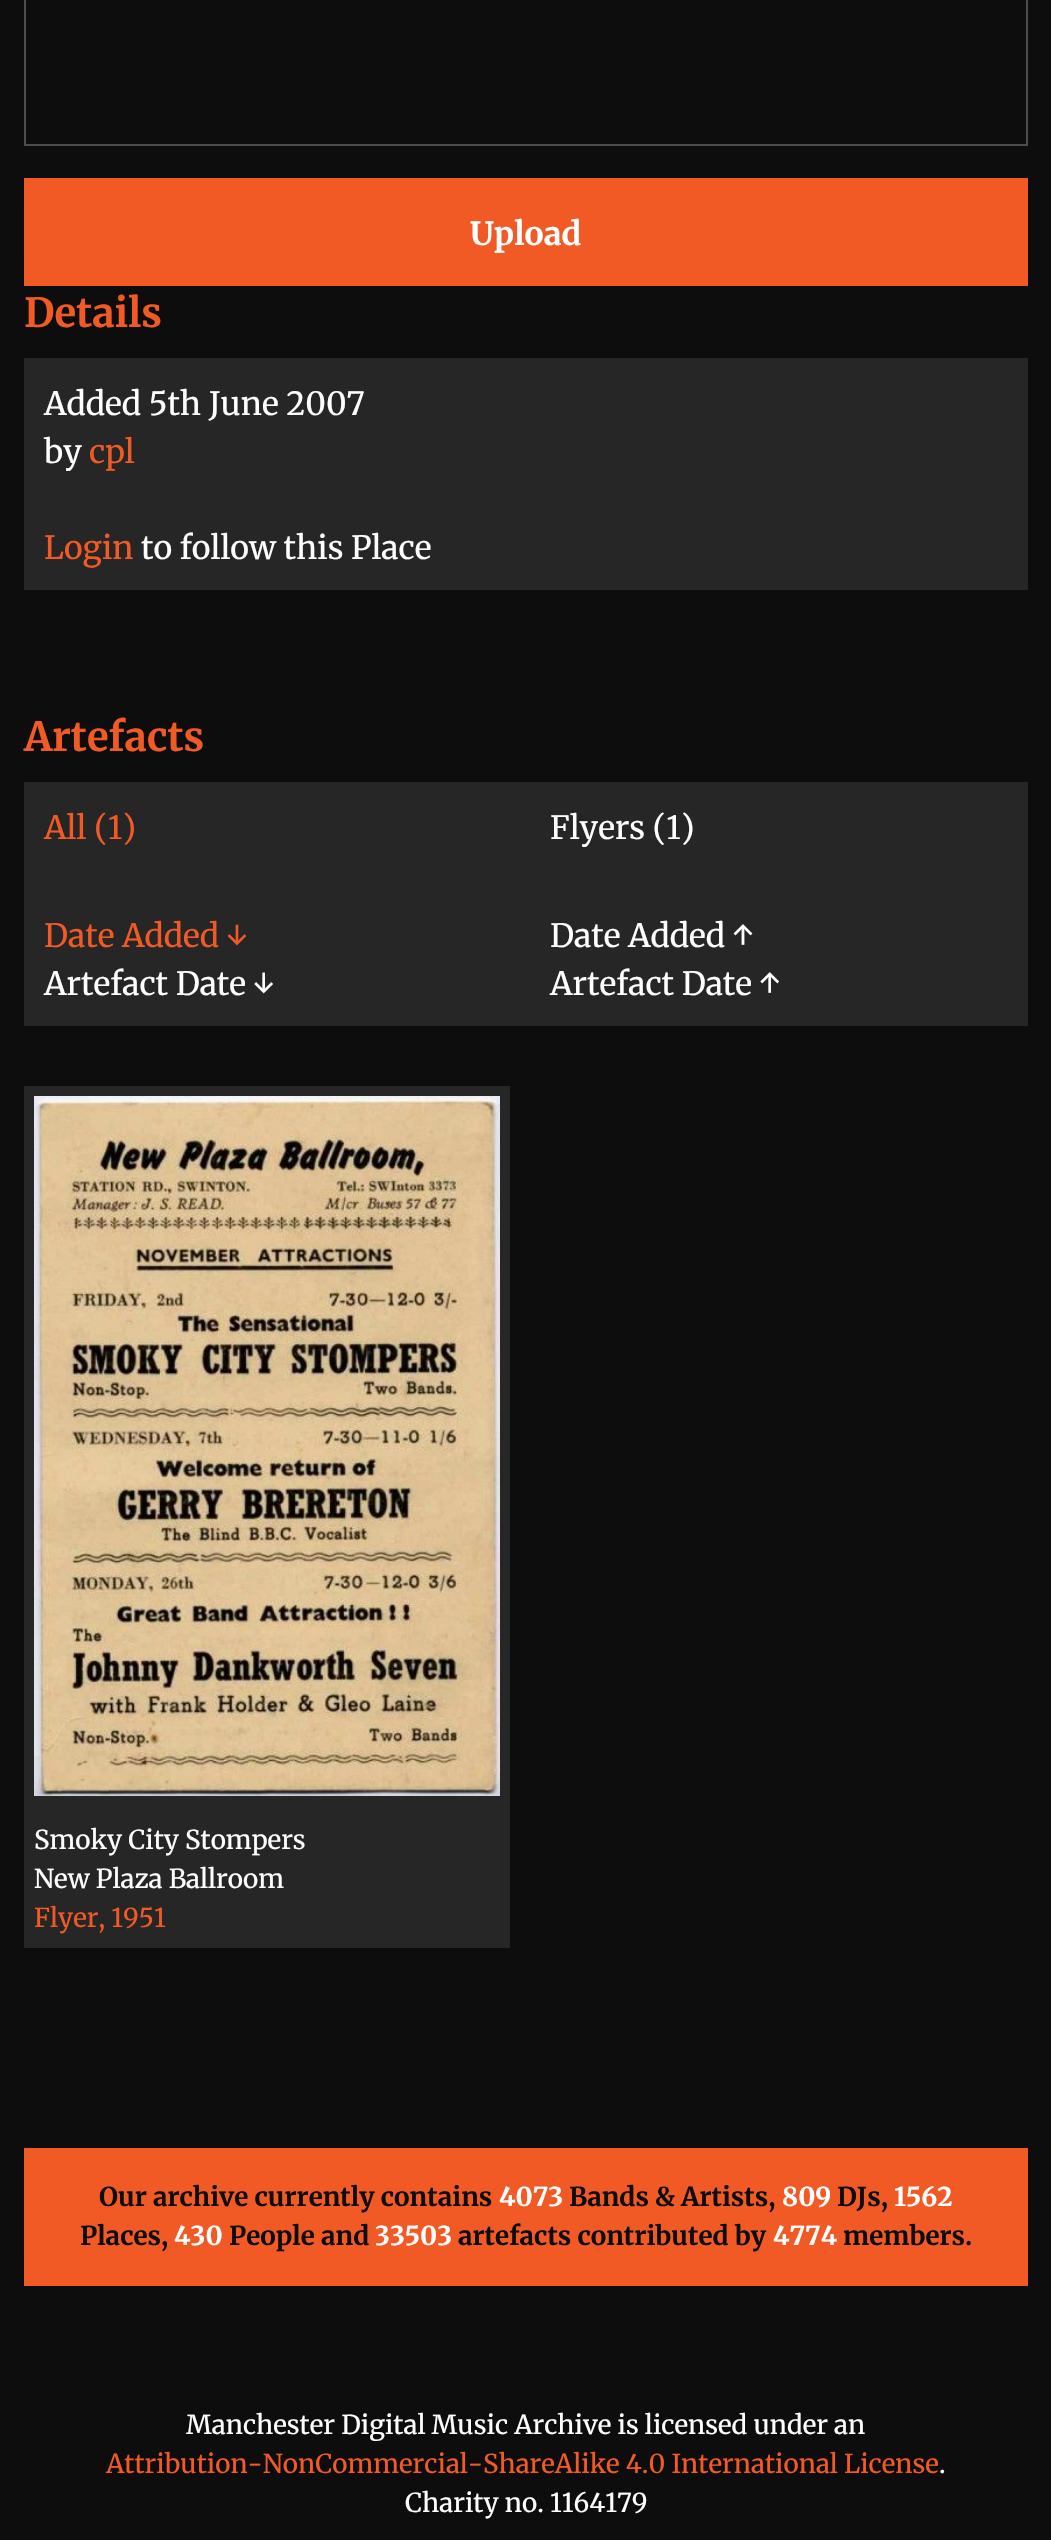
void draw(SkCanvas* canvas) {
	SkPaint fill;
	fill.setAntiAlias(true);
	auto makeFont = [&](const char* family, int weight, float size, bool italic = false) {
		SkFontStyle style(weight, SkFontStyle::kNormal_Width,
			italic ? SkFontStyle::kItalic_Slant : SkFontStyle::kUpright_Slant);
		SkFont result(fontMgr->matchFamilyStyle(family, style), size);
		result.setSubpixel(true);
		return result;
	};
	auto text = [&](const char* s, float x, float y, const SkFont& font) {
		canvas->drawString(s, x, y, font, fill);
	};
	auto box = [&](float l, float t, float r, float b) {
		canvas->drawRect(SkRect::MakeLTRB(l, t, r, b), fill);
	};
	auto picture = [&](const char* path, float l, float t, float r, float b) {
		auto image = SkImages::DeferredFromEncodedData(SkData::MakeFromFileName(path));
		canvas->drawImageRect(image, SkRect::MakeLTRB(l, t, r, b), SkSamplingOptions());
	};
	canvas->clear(0xFF0D0D0D);
	fill.setStyle(SkPaint::kStroke_Style);
	fill.setStrokeWidth(2);
	fill.setColor(0xFF4D4D4D);
	canvas->drawRect(SkRect::MakeLTRB(25, -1, 1027, 145), fill);
	fill.setStyle(SkPaint::kFill_Style);
	fill.setColor(0xFFF15A25);
	box(24, 178, 1028, 286);
	fill.setColor(0xFF262626);
	box(24, 358, 1028, 590);
	box(24, 782, 1028, 1026);
	box(24, 1086, 510, 1948);
	picture("image0.png", 34, 1096, 500, 1796);
	fill.setColor(0xFFF15A25);
	box(24, 2148, 1028, 2286);
	auto font1 = makeFont("Merriweather", 700, 32);
	fill.setColor(0xFFFFFFFF);
	text("Upload", 470, 245, font1);
	auto font2 = makeFont("Merriweather", 700, 40);
	fill.setColor(0xFFF15A25);
	text("Details", 24, 327, font2);
	auto font3 = makeFont("Merriweather", 400, 32);
	fill.setColor(0xFFFFFFFF);
	text("Added 5th June 2007", 44, 415, font3);
	text("by", 44, 463, font3);
	fill.setColor(0xFFF15A25);
	text("cpl", 89, 463, font3);
	text("Login", 44, 559, font3);
	fill.setColor(0xFFFFFFFF);
	text("to follow this Place", 141, 559, font3);
	fill.setColor(0xFFF15A25);
	text("Artefacts", 24, 751, font2);
	text("All (1)", 44, 839, font3);
	fill.setColor(0xFFFFFFFF);
	text("Flyers (1)", 550, 839, font3);
	fill.setColor(0xFFF15A25);
	text("Date Added ↓", 44, 947, font3);
	fill.setColor(0xFFFFFFFF);
	text("Date Added ↑", 550, 947, font3);
	text("Artefact Date ↓", 44, 995, font3);
	text("Artefact Date ↑", 550, 995, font3);
	auto font4 = makeFont("Merriweather", 400, 26);
	text("Smoky City Stompers", 34, 1849, font4);
	text("New Plaza Ballroom", 34, 1888, font4);
	fill.setColor(0xFFF15A25);
	text("Flyer, 1951", 34, 1927, font4);
	auto font5 = makeFont("Merriweather", 700, 26);
	fill.setColor(0xFF0D0D0D);
	text("Our archive currently contains", 99, 2206, font5);
	fill.setColor(0xFFFFFFFF);
	text("4073", 499, 2206, font5);
	fill.setColor(0xFF0D0D0D);
	text("Bands & Artists,", 569, 2206, font5);
	fill.setColor(0xFFFFFFFF);
	text("809", 782, 2206, font5);
	fill.setColor(0xFF0D0D0D);
	text("DJs,", 837, 2206, font5);
	fill.setColor(0xFFFFFFFF);
	text("1562", 894, 2206, font5);
	fill.setColor(0xFF0D0D0D);
	text("Places,", 80, 2245, font5);
	fill.setColor(0xFFFFFFFF);
	text("430", 174, 2245, font5);
	fill.setColor(0xFF0D0D0D);
	text("People and", 229, 2245, font5);
	fill.setColor(0xFFFFFFFF);
	text("33503", 375, 2245, font5);
	fill.setColor(0xFF0D0D0D);
	text("artefacts contributed by", 458, 2245, font5);
	fill.setColor(0xFFFFFFFF);
	text("4774", 773, 2245, font5);
	fill.setColor(0xFF0D0D0D);
	text("members.", 843, 2245, font5);
	fill.setColor(0xFFFFFFFF);
	text("Manchester Digital Music Archive is licensed under an", 186, 2434, font4);
	fill.setColor(0xFFF15A25);
	text("Attribution-NonCommercial-ShareAlike 4.0 International License", 106, 2473, font4);
	fill.setColor(0xFFFFFFFF);
	text(".", 939, 2473, font4);
	text("Charity no. 1164179", 405, 2512, font4);
}
